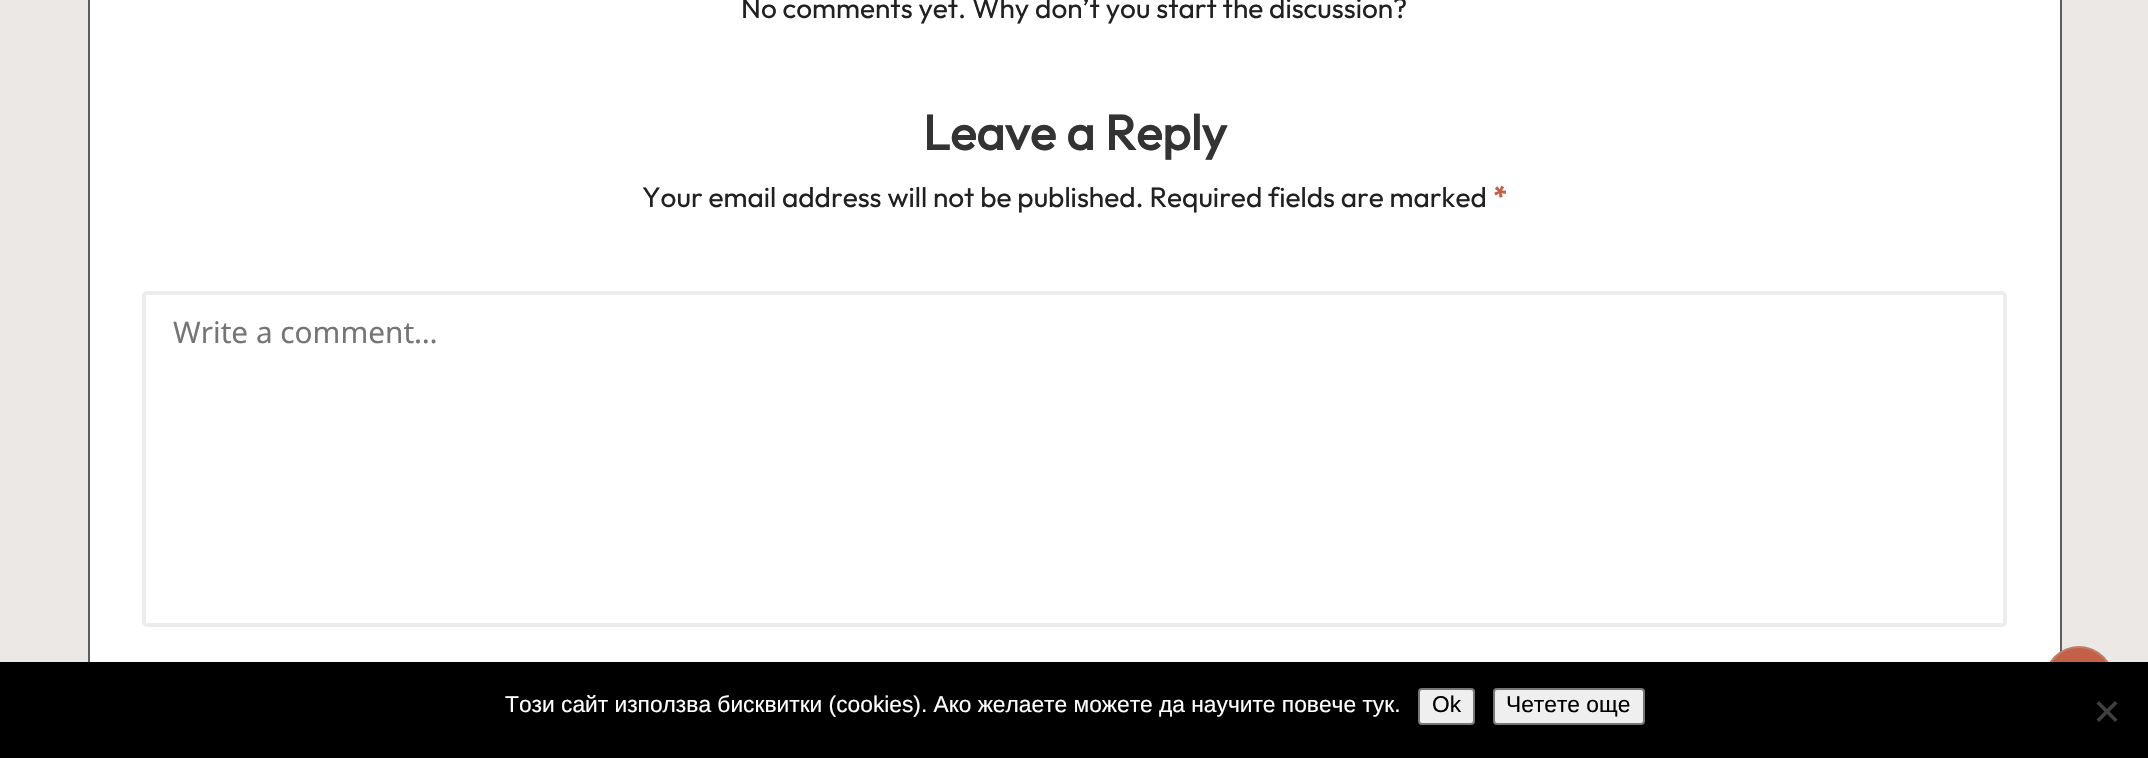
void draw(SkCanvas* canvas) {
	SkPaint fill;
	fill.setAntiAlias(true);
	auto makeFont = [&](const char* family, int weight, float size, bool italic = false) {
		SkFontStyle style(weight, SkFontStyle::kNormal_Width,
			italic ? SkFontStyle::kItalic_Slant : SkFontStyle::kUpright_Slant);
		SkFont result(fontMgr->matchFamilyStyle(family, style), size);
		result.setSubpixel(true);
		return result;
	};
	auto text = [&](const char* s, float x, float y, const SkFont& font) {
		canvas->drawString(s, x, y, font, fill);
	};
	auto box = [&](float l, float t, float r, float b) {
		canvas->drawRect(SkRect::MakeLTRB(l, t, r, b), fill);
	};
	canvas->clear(0xFFEBE8E6);
	fill.setColor(0xFFFFFFFF);
	box(90, 0, 2060, 662);
	fill.setStyle(SkPaint::kStroke_Style);
	fill.setStrokeWidth(2);
	fill.setColor(0xFF5D5D5D);
	canvas->drawRect(SkRect::MakeLTRB(89, -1, 2061, 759), fill);
	fill.setStrokeWidth(4);
	fill.setColor(0xFFECECEC);
	canvas->drawRoundRect(SkRect::MakeLTRB(144, 293, 2005, 625), 3, 3, fill);
	fill.setStyle(SkPaint::kFill_Style);
	fill.setColor(0xFFC26148);
	canvas->drawCircle(2079, 681, 35, fill);
	fill.setStyle(SkPaint::kStroke_Style);
	fill.setStrokeWidth(2);
	fill.setColor(0x4DBEBEBE);
	canvas->drawCircle(2079, 681, 34, fill);
	fill.setStyle(SkPaint::kFill_Style);
	fill.setColor(0xFF000000);
	box(0, 662, 2148, 758);
	fill.setColor(0xFFEFEFEF);
	canvas->drawRoundRect(SkRect::MakeLTRB(1419, 689, 1474, 724), 3, 3, fill);
	fill.setStyle(SkPaint::kStroke_Style);
	fill.setColor(0xFF767676);
	canvas->drawRoundRect(SkRect::MakeLTRB(1419, 689, 1474, 724), 3, 3, fill);
	fill.setStyle(SkPaint::kFill_Style);
	fill.setColor(0xFFEFEFEF);
	canvas->drawRoundRect(SkRect::MakeLTRB(1494, 689, 1644, 724), 3, 3, fill);
	fill.setStyle(SkPaint::kStroke_Style);
	fill.setColor(0xFF767676);
	canvas->drawRoundRect(SkRect::MakeLTRB(1494, 689, 1644, 724), 3, 3, fill);
	fill.setStyle(SkPaint::kFill_Style);
	fill.setColor(0xFF404040);
	canvas->drawPath(SkPathBuilder().moveTo(2115, 701).lineTo(2117.5f, 703.5f).lineTo(2099, 722).lineTo(2096.5f, 719.5f).close().detach(), fill);
	canvas->drawPath(SkPathBuilder().moveTo(2096.5f, 703.5f).lineTo(2099, 701).lineTo(2117.5f, 719.5f).lineTo(2115, 722).close().detach(), fill);
	auto font1 = makeFont("Outfit", 100, 28);
	fill.setColor(0xFF212121);
	text("No comments yet. Why don’t you start the discussion?", 741, 18, font1);
	auto font2 = makeFont("Outfit", 700, 49);
	fill.setColor(0xFF333333);
	text("Leave a Reply", 923, 150, font2);
	fill.setColor(0xFF212121);
	text("Your email address will not be published. Required fields are marked", 642, 207, font1);
	auto font3 = makeFont("Outfit", 700, 28);
	fill.setColor(0xFFC26148);
	text("*", 1493, 207, font3);
	auto font4 = makeFont("Noto Sans", 400, 29.75f);
	fill.setColor(0xFF757575);
	text("Write a comment…", 173, 343, font4);
	auto font5 = makeFont("Liberation Sans", 400, 22.75f);
	fill.setColor(0xFFFFFFFF);
	text("Този сайт използва бисквитки (cookies). Ако желаете можете да научите повече тук.", 505, 712, font5);
	fill.setColor(0xFF000000);
	text("Ok", 1432, 712, font5);
	text("Четете още", 1506, 712, font5);
}
